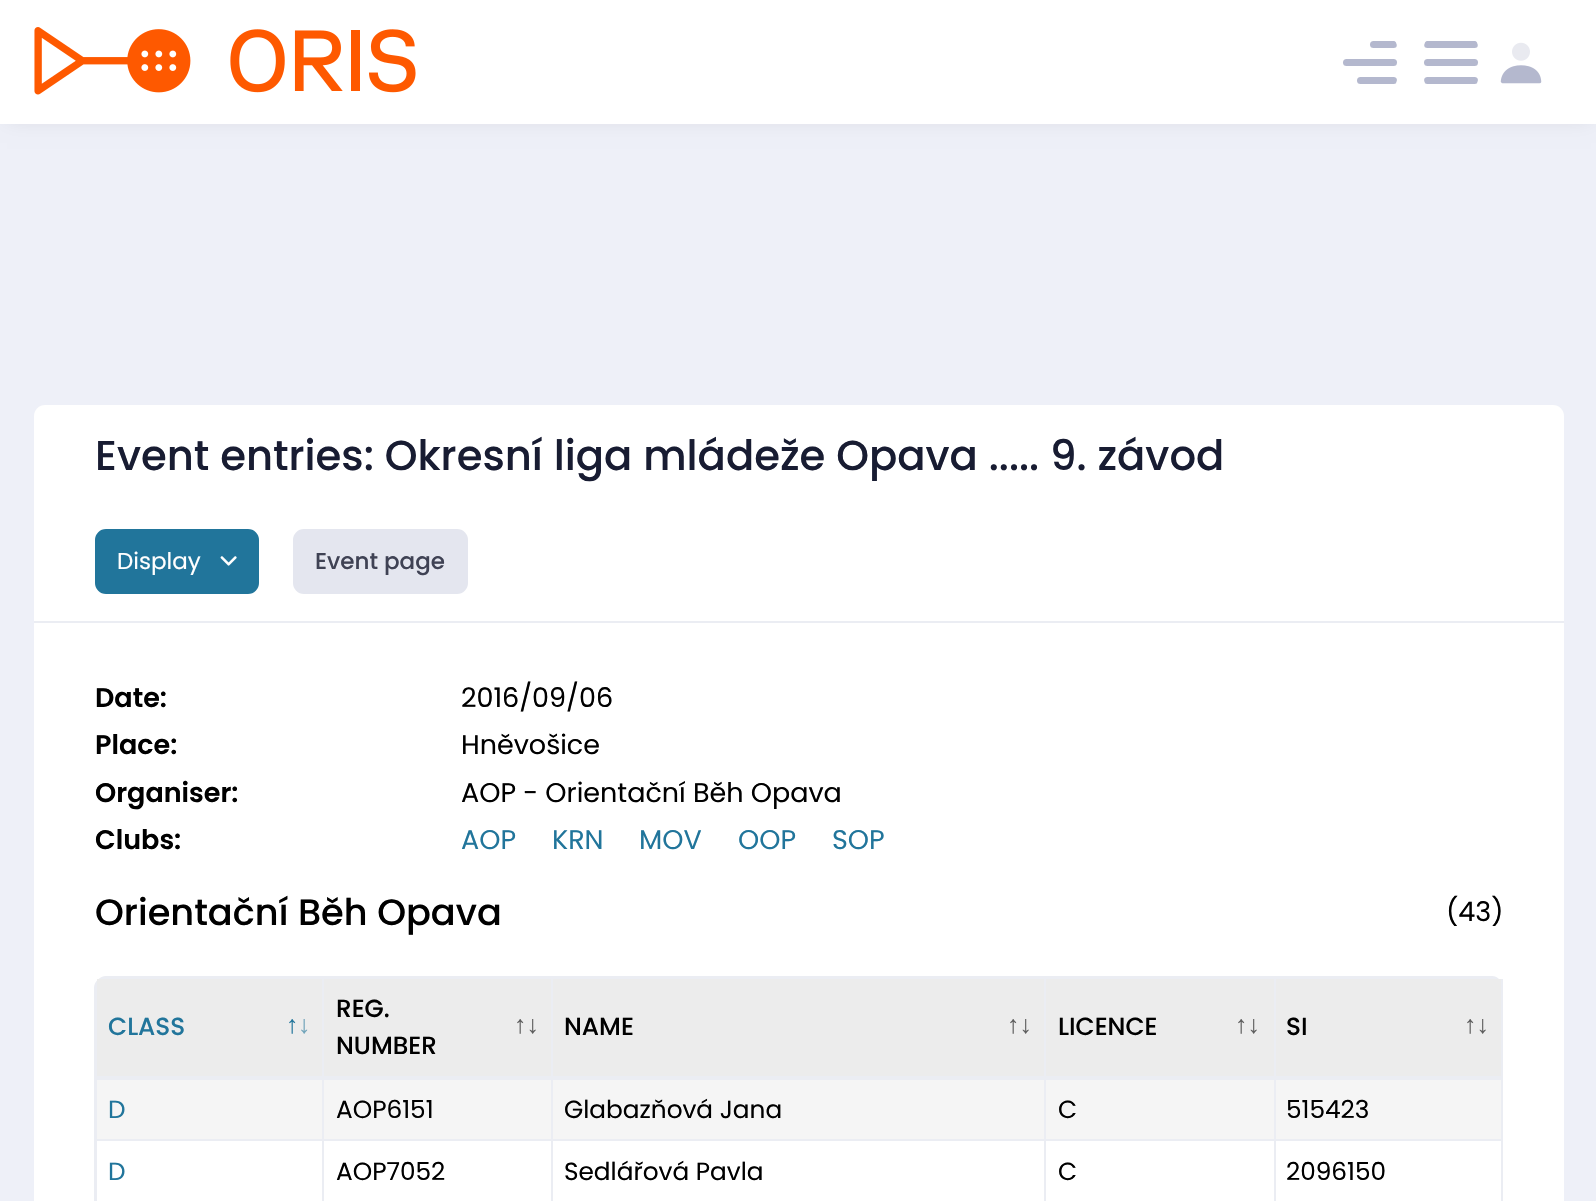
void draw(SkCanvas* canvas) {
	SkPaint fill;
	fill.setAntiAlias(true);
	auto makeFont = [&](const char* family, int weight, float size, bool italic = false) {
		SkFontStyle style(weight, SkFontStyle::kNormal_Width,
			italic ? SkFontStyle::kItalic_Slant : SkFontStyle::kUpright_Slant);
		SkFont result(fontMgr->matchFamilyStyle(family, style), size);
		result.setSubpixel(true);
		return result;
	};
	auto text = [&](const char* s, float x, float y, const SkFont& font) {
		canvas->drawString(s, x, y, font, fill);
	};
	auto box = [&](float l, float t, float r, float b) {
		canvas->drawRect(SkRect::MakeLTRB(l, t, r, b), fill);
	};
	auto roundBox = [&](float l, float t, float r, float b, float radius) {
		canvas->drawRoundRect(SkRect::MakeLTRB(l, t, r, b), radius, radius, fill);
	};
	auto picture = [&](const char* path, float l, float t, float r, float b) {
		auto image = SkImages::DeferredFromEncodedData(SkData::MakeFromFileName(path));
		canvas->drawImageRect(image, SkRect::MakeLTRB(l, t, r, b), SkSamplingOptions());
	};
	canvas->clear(0xFFEEF0F8);
	fill.setColor(0x1A000000);
	fill.setMaskFilter(SkMaskFilter::MakeBlur(kNormal_SkBlurStyle, 10));
	canvas->drawRect(SkRect::MakeLTRB(7, 9, 1591, 119), fill);
	fill.setMaskFilter(nullptr);
	fill.setColor(0xFFFFFFFF);
	box(0, 0, 1596, 124);
	picture("image0.png", 34, 27, 416, 95);
	fill.setColor(0xFFB4B8CE);
	roundBox(1343, 59, 1397, 66, 3.5f);
	canvas->save();
	canvas->clipPath(SkPathBuilder().moveTo(1354, 36).lineTo(1386, 36).cubicTo(1392, 36, 1397, 41, 1397, 47).lineTo(1397, 79).cubicTo(1397, 85, 1392, 90, 1386, 90).lineTo(1354, 90).cubicTo(1348, 90, 1343, 85, 1343, 79).lineTo(1343, 47).cubicTo(1343, 41, 1348, 36, 1354, 36).close().detach(), true);
	roundBox(1370, 41, 1397, 48, 3.5f);
	roundBox(1357, 77, 1397, 84, 3.5f);
	canvas->restore();
	roundBox(1424, 59, 1478, 66, 3.5f);
	canvas->save();
	canvas->clipPath(SkPathBuilder().moveTo(1435, 36).lineTo(1467, 36).cubicTo(1473, 36, 1478, 41, 1478, 47).lineTo(1478, 79).cubicTo(1478, 85, 1473, 90, 1467, 90).lineTo(1435, 90).cubicTo(1429, 90, 1424, 85, 1424, 79).lineTo(1424, 47).cubicTo(1424, 41, 1429, 36, 1435, 36).close().detach(), true);
	roundBox(1424, 41, 1478, 48, 3.5f);
	roundBox(1424, 77, 1478, 84, 3.5f);
	canvas->restore();
	picture("image1.png", 1500, 42, 1542, 84);
	fill.setColor(0xFFFFFFFF);
	roundBox(34, 405, 1564, 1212, 11);
	fill.setColor(0xFFEBEDF3);
	box(34, 621, 1564, 623);
	fill.setColor(0xFF21759B);
	canvas->drawRoundRect(SkRect::MakeLTRB(96, 530, 258, 593), 10, 10, fill);
	fill.setStyle(SkPaint::kStroke_Style);
	fill.setStrokeWidth(2);
	canvas->drawRoundRect(SkRect::MakeLTRB(96, 530, 258, 593), 10, 10, fill);
	picture("image2.png", 220, 556, 237, 566);
	fill.setStyle(SkPaint::kFill_Style);
	fill.setColor(0xFFE4E6EF);
	canvas->drawRoundRect(SkRect::MakeLTRB(294, 530, 467, 593), 10, 10, fill);
	fill.setStyle(SkPaint::kStroke_Style);
	canvas->drawRoundRect(SkRect::MakeLTRB(294, 530, 467, 593), 10, 10, fill);
	fill.setStyle(SkPaint::kFill_Style);
	fill.setColor(0xFFEBEDF3);
	canvas->drawPath(SkPathBuilder(SkPathFillType::kEvenOdd).moveTo(106, 976).lineTo(1492, 976).cubicTo(1498, 976, 1503, 982, 1503, 988).lineTo(1503, 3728).cubicTo(1503, 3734, 1498, 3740, 1492, 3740).lineTo(106, 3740).cubicTo(100, 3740, 94, 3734, 94, 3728).lineTo(94, 988).cubicTo(94, 982, 100, 976, 106, 976).close().moveTo(106, 979).lineTo(1492, 979).cubicTo(1498, 979, 1503, 983, 1503, 988).lineTo(1503, 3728).cubicTo(1503, 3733, 1498, 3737, 1492, 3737).lineTo(106, 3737).cubicTo(101, 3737, 97, 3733, 97, 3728).lineTo(97, 988).cubicTo(97, 983, 101, 979, 106, 979).close().detach(), fill);
	fill.setColor(0xFFECECEC);
	box(97, 979, 322, 1076);
	fill.setColor(0xFFF5F5F5);
	box(97, 1080, 1501, 1139);
	fill.setColor(0xFFEBEDF3);
	box(97, 1078, 1503, 1080);
	box(322, 979, 324, 1139);
	box(97, 1076, 324, 1078);
	fill.setColor(0xFFECECEC);
	box(324, 979, 1044, 1076);
	fill.setColor(0xFFEBEDF3);
	box(551, 979, 553, 1078);
	box(1044, 979, 1046, 1139);
	box(1274, 979, 1276, 1139);
	box(1501, 979, 1503, 1139);
	box(324, 1076, 1503, 1078);
	fill.setColor(0xFFECECEC);
	box(1046, 979, 1274, 1076);
	box(1276, 979, 1501, 1076);
	fill.setColor(0xFFEBEDF3);
	box(551, 1078, 553, 1139);
	box(97, 1139, 1503, 1141);
	box(322, 1139, 324, 1201);
	box(551, 1139, 553, 1201);
	box(1044, 1139, 1046, 1201);
	box(1274, 1139, 1276, 1201);
	box(1501, 1139, 1503, 1201);
	auto font1 = makeFont("Poppins", 500, 41.75f);
	fill.setColor(0xFF181C32);
	text("Event entries: Okresní liga mládeže Opava ..... 9. závod", 95, 470, font1);
	auto font2 = makeFont("Poppins", 400, 23);
	fill.setColor(0xFFFFFFFF);
	text("Display", 117, 569, font2);
	auto font3 = makeFont("Poppins", 500, 23);
	fill.setColor(0xFF3F4254);
	text("Event page", 315, 569, font3);
	auto font4 = makeFont("Poppins", 600, 27);
	fill.setColor(0xFF000000);
	text("Date:", 95, 707, font4);
	auto font5 = makeFont("Poppins", 400, 27);
	text("2016/09/06", 461, 707, font5);
	text("Place:", 95, 754, font4);
	text("Hněvošice", 461, 754, font5);
	text("Organiser:", 95, 802, font4);
	text("AOP - Orientační Běh Opava", 461, 802, font5);
	text("Clubs:", 95, 849, font4);
	fill.setColor(0xFF21759B);
	text("AOP", 461, 849, font5);
	text("KRN", 552, 849, font5);
	text("MOV", 639, 849, font5);
	text("OOP", 738, 849, font5);
	text("SOP", 832, 849, font5);
	auto font6 = makeFont("Poppins", 500, 36.75f);
	fill.setColor(0xFF000000);
	text("Orientační Běh Opava", 95, 925, font6);
	text("(43)", 1446, 921, font5);
	auto font7 = makeFont("Poppins", 500, 24.75f);
	fill.setColor(0xFF21759B);
	text("CLASS", 108, 1035, font7);
	auto font8 = makeFont("Liberation Sans", 400, 24.75f);
	text("↑", 286, 1033, font8);
	fill.setColor(0xFF72A5BB);
	text("↓", 298, 1033, font8);
	fill.setColor(0xFF000000);
	text("REG.", 336, 1017, font7);
	text("NUMBER", 336, 1054, font7);
	fill.setColor(0xFF5E5E5E);
	text("↑↓", 514, 1033, font8);
	fill.setColor(0xFF000000);
	text("NAME", 564, 1035, font7);
	fill.setColor(0xFF5E5E5E);
	text("↑↓", 1007, 1033, font8);
	fill.setColor(0xFF000000);
	text("LICENCE", 1058, 1035, font7);
	fill.setColor(0xFF5E5E5E);
	text("↑↓", 1235, 1033, font8);
	fill.setColor(0xFF000000);
	text("SI", 1286, 1035, font7);
	fill.setColor(0xFF5E5E5E);
	text("↑↓", 1464, 1033, font8);
	auto font9 = makeFont("Poppins", 400, 24.75f);
	fill.setColor(0xFF21759B);
	text("D", 108, 1118, font9);
	fill.setColor(0xFF000000);
	text("AOP6151", 336, 1118, font9);
	text("Glabazňová Jana", 564, 1118, font9);
	text("C", 1058, 1118, font9);
	text("515423", 1286, 1118, font9);
	fill.setColor(0xFF21759B);
	text("D", 108, 1180, font9);
	fill.setColor(0xFF000000);
	text("AOP7052", 336, 1180, font9);
	text("Sedlářová Pavla", 564, 1180, font9);
	text("C", 1058, 1180, font9);
	text("2096150", 1286, 1180, font9);
}
